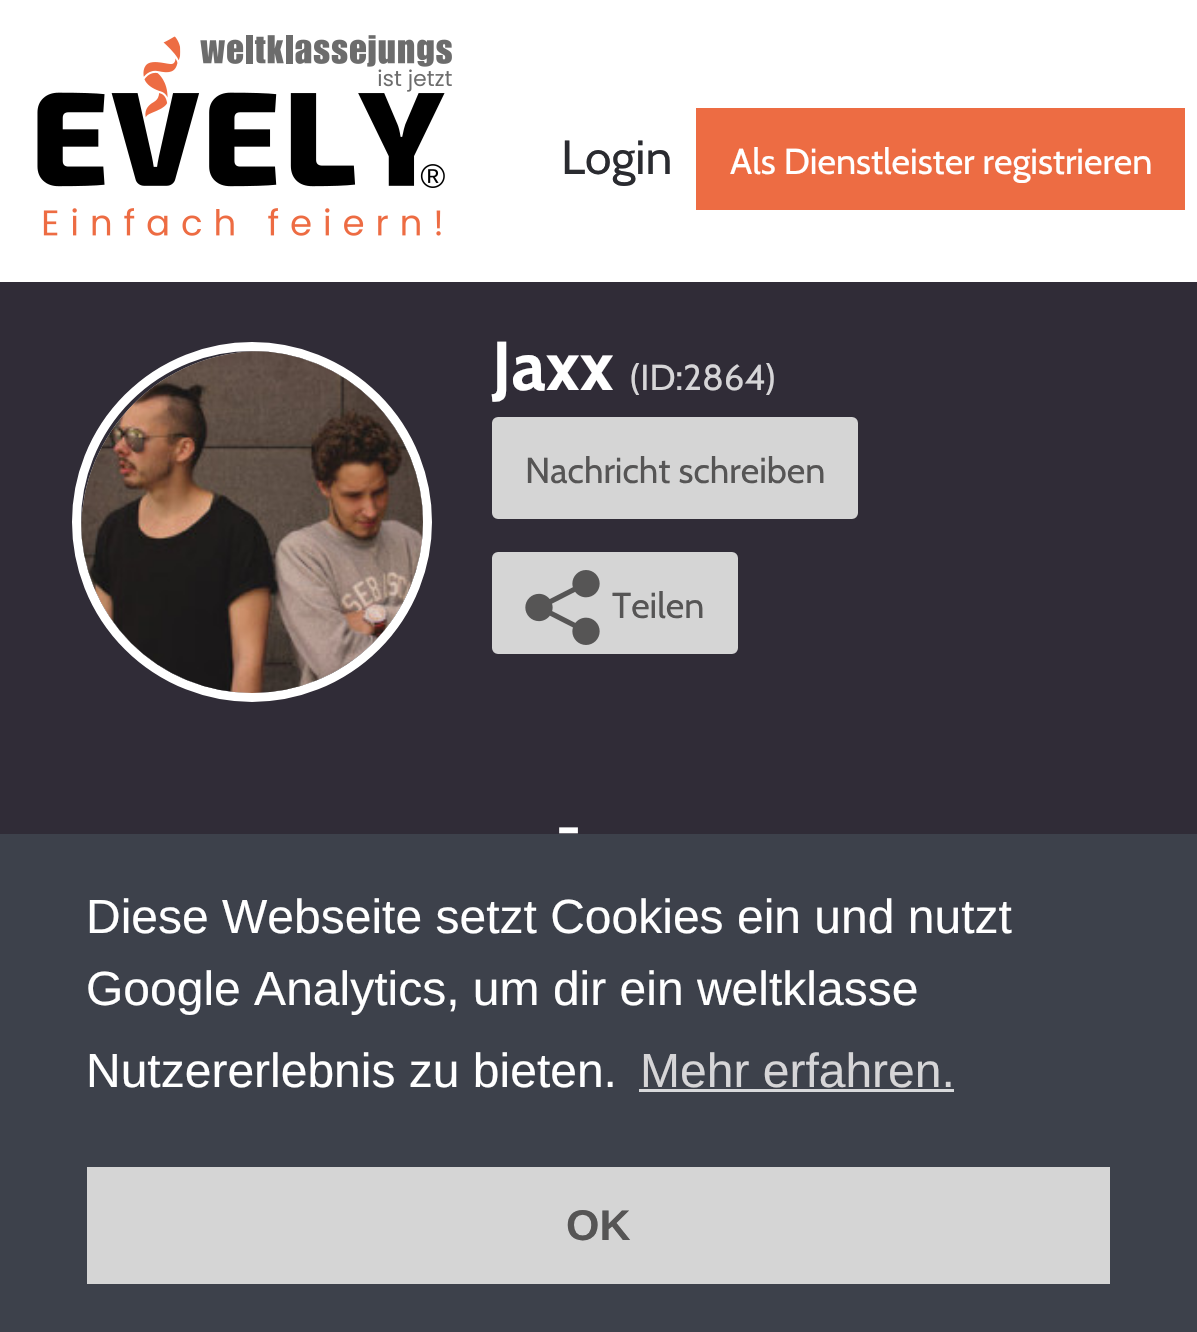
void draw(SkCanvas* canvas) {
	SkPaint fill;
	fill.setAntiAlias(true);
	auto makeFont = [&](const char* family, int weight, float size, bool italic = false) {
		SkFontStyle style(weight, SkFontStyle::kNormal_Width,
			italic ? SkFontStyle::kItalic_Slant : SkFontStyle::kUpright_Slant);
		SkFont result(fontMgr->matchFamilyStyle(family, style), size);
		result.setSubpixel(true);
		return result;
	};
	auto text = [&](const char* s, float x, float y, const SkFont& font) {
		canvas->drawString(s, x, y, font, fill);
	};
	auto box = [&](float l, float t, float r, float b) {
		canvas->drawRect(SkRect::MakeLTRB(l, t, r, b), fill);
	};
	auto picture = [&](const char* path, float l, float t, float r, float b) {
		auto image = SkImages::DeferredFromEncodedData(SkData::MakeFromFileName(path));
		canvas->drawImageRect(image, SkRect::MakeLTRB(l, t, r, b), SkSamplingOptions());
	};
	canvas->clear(0xFF302C37);
	fill.setColor(0xFFFFFFFF);
	box(0, 0, 1197, 282);
	picture("image0.png", 37, 35, 452, 236);
	fill.setColor(0xFFED6C43);
	box(696, 108, 1185, 210);
	fill.setStyle(SkPaint::kStroke_Style);
	fill.setStrokeWidth(9);
	fill.setColor(0xFFFFFFFF);
	canvas->drawCircle(252, 522, 175.5f, fill);
	canvas->save();
	canvas->clipPath(SkPathBuilder().moveTo(252, 351).cubicTo(346.5f, 351, 423, 427.5f, 423, 522).cubicTo(423, 616.5f, 346.5f, 693, 252, 693).cubicTo(157.5f, 693, 81, 616.5f, 81, 522).cubicTo(81, 427.5f, 157.5f, 351, 252, 351).close().detach(), true);
	fill.setStyle(SkPaint::kFill_Style);
	fill.setColor(0xFFD8D8D8);
	canvas->drawCircle(261, 531, 180, fill);
	canvas->restore();
	picture("image1.png", 81, 351, 423, 693);
	fill.setColor(0xFFD5D5D5);
	canvas->drawRoundRect(SkRect::MakeLTRB(493.5f, 418.5f, 856.5f, 517.5f), 4.5f, 4.5f, fill);
	fill.setStyle(SkPaint::kStroke_Style);
	fill.setStrokeWidth(3);
	canvas->drawRoundRect(SkRect::MakeLTRB(493.5f, 418.5f, 856.5f, 517.5f), 4.5f, 4.5f, fill);
	fill.setStyle(SkPaint::kFill_Style);
	canvas->drawRoundRect(SkRect::MakeLTRB(493.5f, 553.5f, 736.5f, 652.5f), 4.5f, 4.5f, fill);
	fill.setStyle(SkPaint::kStroke_Style);
	canvas->drawRoundRect(SkRect::MakeLTRB(493.5f, 553.5f, 736.5f, 652.5f), 4.5f, 4.5f, fill);
	picture("image2.png", 525, 570, 600, 645);
	fill.setStyle(SkPaint::kFill_Style);
	fill.setColor(0xFF3D414B);
	box(0, 834, 1197, 1332);
	fill.setColor(0xFFD8D9DB);
	box(639, 1089, 954, 1092);
	fill.setColor(0xFFD5D5D5);
	box(87, 1167, 1110, 1284);
	auto font1 = makeFont("Cabin", 400, 48);
	fill.setColor(0xFF2A2B30);
	text("Login", 561, 174, font1);
	auto font2 = makeFont("Cabin", 400, 36);
	fill.setColor(0xFFFFFFFF);
	text("Als Dienstleister registrieren", 730, 174, font2);
	auto font3 = makeFont("Cabin", 700, 69);
	text("Jaxx", 492, 390, font3);
	fill.setColor(0xFFD6D5D7);
	text("(ID:2864)", 629, 390, font2);
	fill.setColor(0xFF565555);
	text("Nachricht schreiben", 525, 483, font2);
	text("Teilen", 612, 618, font2);
	auto font4 = makeFont("Cabin", 700, 60);
	fill.setColor(0xFFFFFFFF);
	text("-", 556, 849, font4);
	auto font5 = makeFont("Liberation Sans", 400, 48);
	text("Diese Webseite setzt Cookies ein und nutzt", 86, 933, font5);
	text("Google Analytics, um dir ein weltklasse", 86, 1005, font5);
	text("Nutzererlebnis zu bieten.", 86, 1087, font5);
	fill.setColor(0xFFD6D5D7);
	text("Mehr erfahren.", 640, 1087, font5);
	auto font6 = makeFont("Liberation Sans", 700, 43);
	fill.setColor(0xFF565555);
	text("OK", 566, 1240, font6);
}
